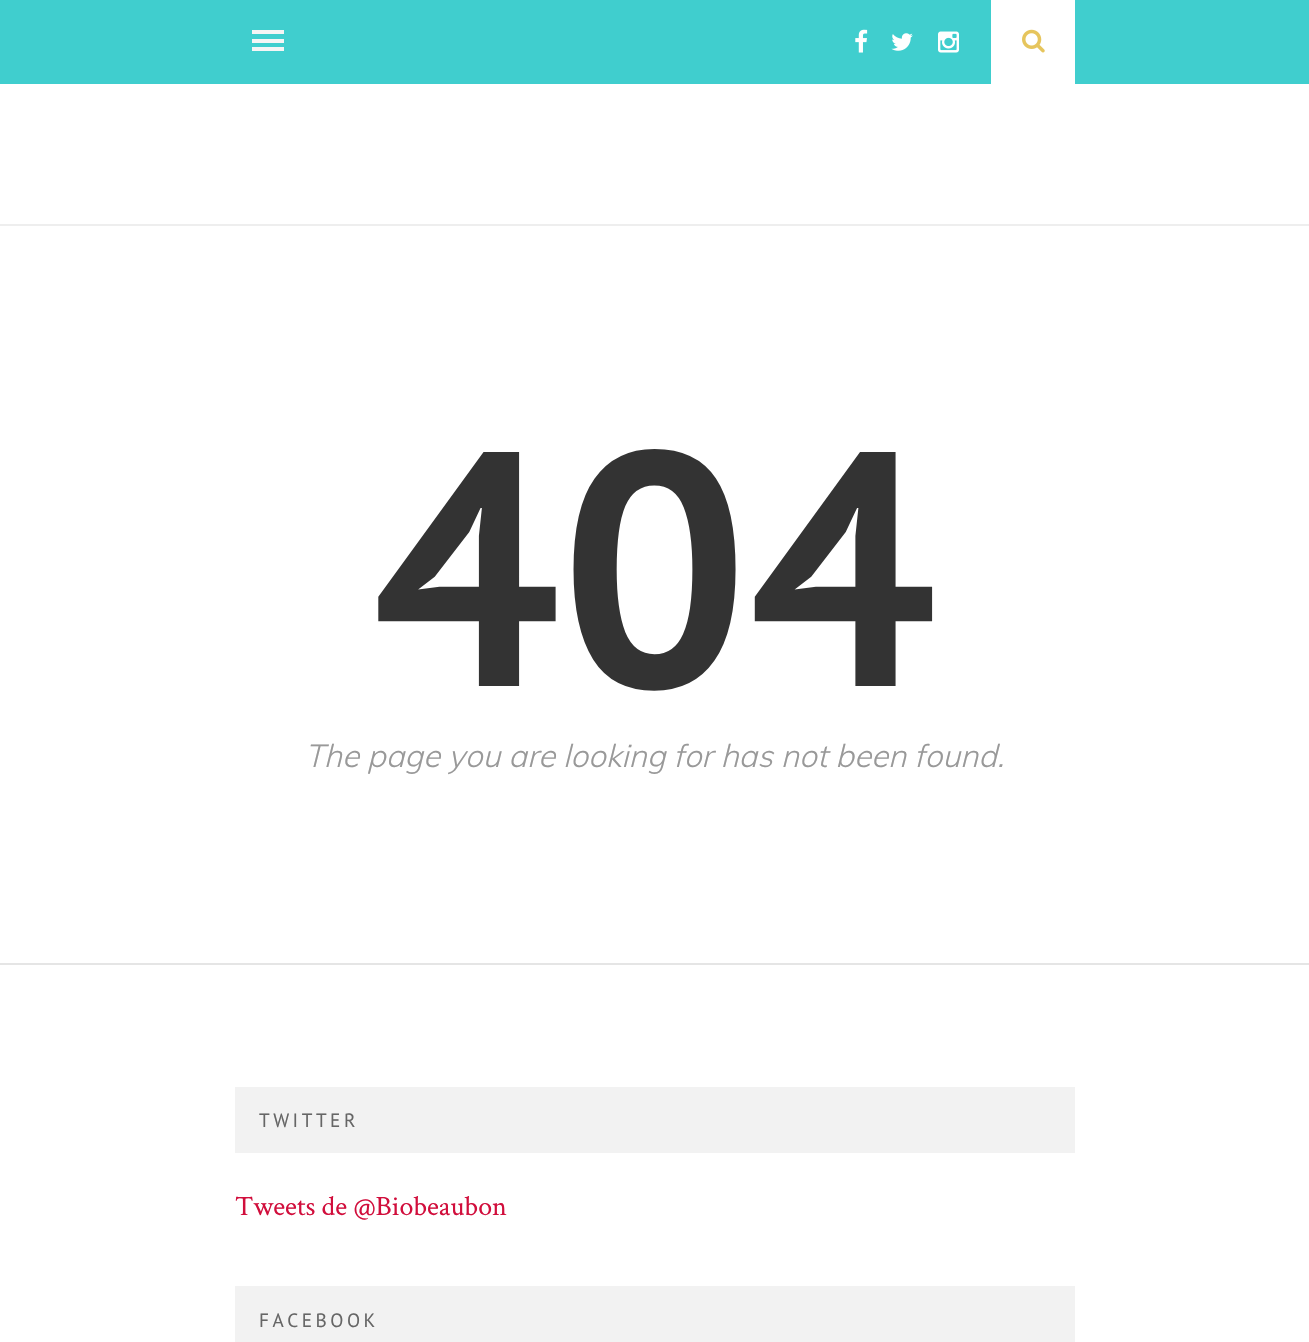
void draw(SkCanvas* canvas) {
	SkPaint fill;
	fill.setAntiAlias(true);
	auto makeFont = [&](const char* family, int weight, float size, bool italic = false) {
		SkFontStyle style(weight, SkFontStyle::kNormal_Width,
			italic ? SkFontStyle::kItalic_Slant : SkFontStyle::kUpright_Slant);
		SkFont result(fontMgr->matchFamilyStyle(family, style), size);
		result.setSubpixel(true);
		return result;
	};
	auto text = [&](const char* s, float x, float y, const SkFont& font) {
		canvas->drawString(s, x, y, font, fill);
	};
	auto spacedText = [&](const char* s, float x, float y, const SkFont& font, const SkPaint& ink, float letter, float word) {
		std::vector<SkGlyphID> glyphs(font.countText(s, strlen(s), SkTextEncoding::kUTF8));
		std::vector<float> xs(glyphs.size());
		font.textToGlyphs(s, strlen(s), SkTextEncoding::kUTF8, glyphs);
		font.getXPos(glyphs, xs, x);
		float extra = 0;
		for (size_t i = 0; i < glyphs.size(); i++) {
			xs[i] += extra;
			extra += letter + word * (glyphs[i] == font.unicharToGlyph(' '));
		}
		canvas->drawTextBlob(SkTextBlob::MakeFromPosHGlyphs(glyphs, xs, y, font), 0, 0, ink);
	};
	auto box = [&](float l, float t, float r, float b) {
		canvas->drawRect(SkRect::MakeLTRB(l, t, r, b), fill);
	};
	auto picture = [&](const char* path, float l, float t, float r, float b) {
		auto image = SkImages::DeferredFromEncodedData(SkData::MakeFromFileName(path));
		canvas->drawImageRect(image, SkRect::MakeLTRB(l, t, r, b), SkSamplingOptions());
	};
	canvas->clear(0xFFFFFFFF);
	fill.setColor(0xFF40CECE);
	box(0, 0, 1309, 84);
	fill.setColor(0xFFF5F5F5);
	box(252, 30, 284, 34);
	box(252, 39, 284, 43);
	box(252, 47, 284, 51);
	picture("image0.png", 855, 29, 868, 53);
	picture("image1.png", 891, 33, 913, 51);
	picture("image2.png", 938, 31, 959, 53);
	fill.setColor(0xFFFFFFFF);
	box(991, 0, 1075, 84);
	picture("image3.png", 1022, 29, 1045, 53);
	fill.setColor(0xFFEEEEEE);
	box(0, 224, 1309, 226);
	fill.setColor(0xFFE5E5E5);
	box(0, 963, 1309, 965);
	fill.setColor(0xFFF2F2F2);
	box(235, 1087, 1075, 1153);
	box(235, 1286, 1075, 1342);
	auto font1 = makeFont("PT Sans", 700, 332);
	fill.setColor(0xFF333333);
	text("404", 372, 686, font1);
	auto font2 = makeFont("Muli", 300, 31.5f, true);
	fill.setColor(0xFF999999);
	text("The page you are looking for has not been found.", 305, 767, font2);
	auto font3 = makeFont("PT Sans", 400, 19.25f);
	fill.setColor(0xFF666666);
	spacedText("TWITTER", 259, 1127, font3, fill, 3.5f, 0);
	auto font4 = makeFont("Crimson Text", 400, 28);
	fill.setColor(0xFFD10E3C);
	text("Tweets de @Biobeaubon", 235, 1215, font4);
	fill.setColor(0xFF666666);
	spacedText("FACEBOOK", 259, 1327, font3, fill, 3.5f, 0);
}
